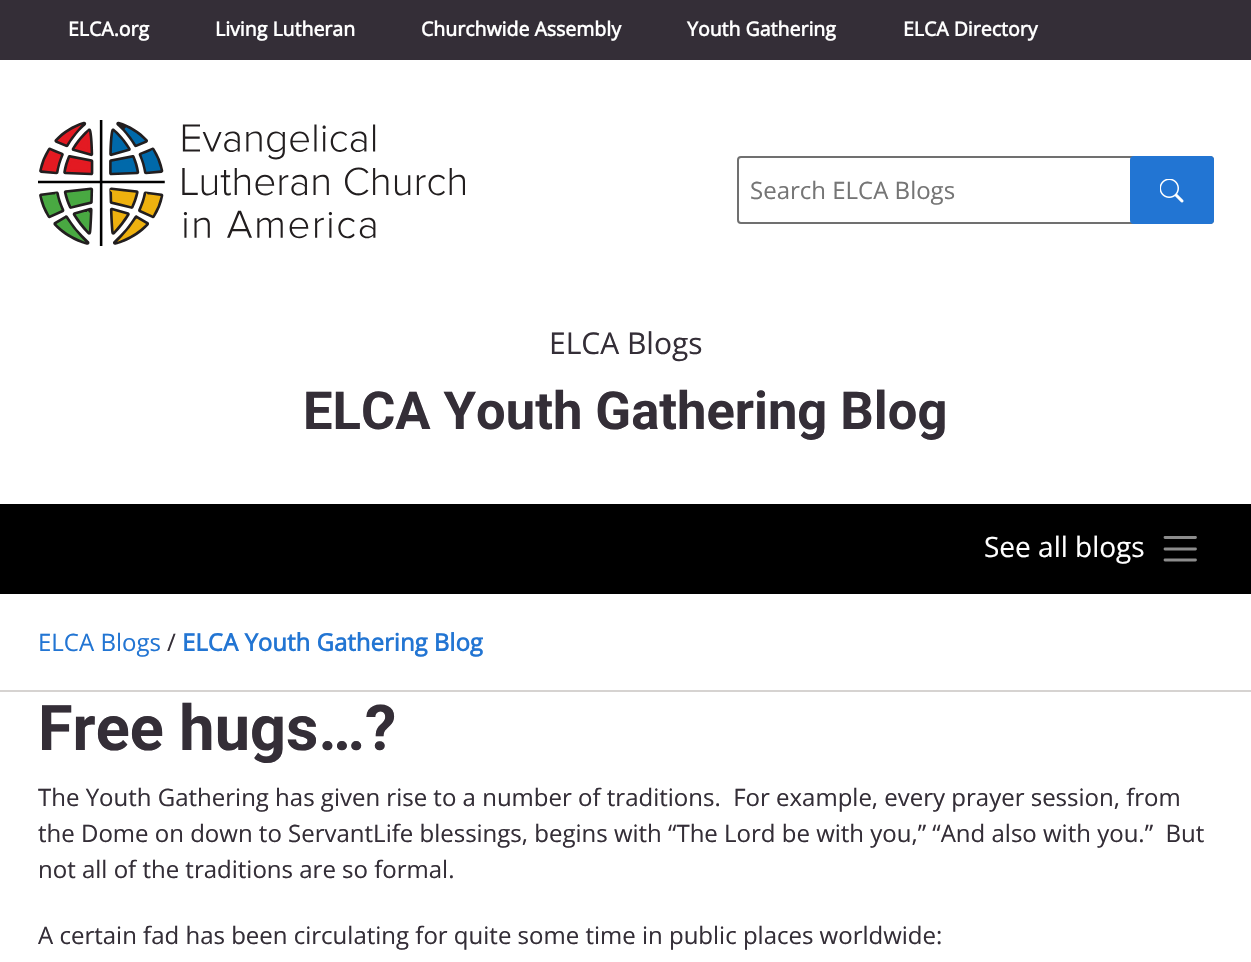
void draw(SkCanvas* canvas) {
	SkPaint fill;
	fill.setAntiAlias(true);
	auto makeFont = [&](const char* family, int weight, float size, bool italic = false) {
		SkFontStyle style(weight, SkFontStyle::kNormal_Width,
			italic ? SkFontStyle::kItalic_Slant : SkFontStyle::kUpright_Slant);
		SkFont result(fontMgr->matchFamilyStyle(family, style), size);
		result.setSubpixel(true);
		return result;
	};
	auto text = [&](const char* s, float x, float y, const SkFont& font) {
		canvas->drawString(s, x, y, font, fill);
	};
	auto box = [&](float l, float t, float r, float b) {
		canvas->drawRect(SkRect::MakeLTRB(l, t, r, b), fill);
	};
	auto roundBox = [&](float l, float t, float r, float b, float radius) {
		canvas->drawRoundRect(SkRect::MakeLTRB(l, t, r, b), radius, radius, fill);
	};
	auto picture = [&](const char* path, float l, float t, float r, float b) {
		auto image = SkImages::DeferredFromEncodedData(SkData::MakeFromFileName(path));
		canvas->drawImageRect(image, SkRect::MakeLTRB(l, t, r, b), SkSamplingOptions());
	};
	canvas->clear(0xFFFFFFFF);
	fill.setColor(0xFF342E37);
	box(0, 0, 1251, 60);
	picture("image0.png", 38, 120, 465, 246);
	fill.setStyle(SkPaint::kStroke_Style);
	fill.setStrokeWidth(2);
	fill.setColor(0xFF707070);
	canvas->drawRoundRect(SkRect::MakeLTRB(738, 157, 1213, 223), 3, 3, fill);
	fill.setStyle(SkPaint::kFill_Style);
	fill.setColor(0xFF2275D3);
	roundBox(1130, 156, 1214, 224, 4);
	picture("image1.png", 1160, 179, 1184, 203);
	fill.setColor(0xFF000000);
	box(0, 504, 1251, 594);
	fill.setStyle(SkPaint::kStroke_Style);
	fill.setStrokeWidth(2.8f);
	fill.setStrokeCap(SkPaint::kRound_Cap);
	fill.setColor(0xFF8C8C8C);
	canvas->drawPath(SkPathBuilder().moveTo(1165, 537.5f).lineTo(1195.5f, 537.5f).moveTo(1165, 549).lineTo(1195.5f, 549).moveTo(1165, 560).lineTo(1195.5f, 560).detach(), fill);
	fill.setStyle(SkPaint::kFill_Style);
	fill.setColor(0xFFD6D3D1);
	box(0, 690, 1251, 692);
	auto font1 = makeFont("Open Sans", 700, 19.5f);
	fill.setColor(0xFFFFFFFF);
	text("ELCA.org", 68, 36, font1);
	text("Living Lutheran", 215, 36, font1);
	text("Churchwide Assembly", 421, 36, font1);
	text("Youth Gathering", 687, 36, font1);
	text("ELCA Directory", 903, 36, font1);
	auto font2 = makeFont("Open Sans", 400, 24);
	fill.setColor(0xFF757575);
	text("Search ELCA Blogs", 750, 199, font2);
	auto font3 = makeFont("Open Sans", 400, 30);
	fill.setColor(0xFF342E37);
	text("ELCA Blogs", 549, 354, font3);
	auto font4 = makeFont("Roboto", 700, 52.5f);
	text("ELCA Youth Gathering Blog", 303, 429, font4);
	auto font5 = makeFont("Open Sans", 400, 28);
	fill.setColor(0xFFFFFFFF);
	text("See all blogs", 984, 557, font5);
	fill.setColor(0xFF2275D3);
	text("ELCA Blogs", 38, 651, font2);
	fill.setColor(0xFF342E37);
	text("/", 167, 651, font2);
	auto font6 = makeFont("Open Sans", 700, 24);
	fill.setColor(0xFF2275D3);
	text("ELCA Youth Gathering Blog", 182, 651, font6);
	auto font7 = makeFont("Roboto", 700, 63);
	fill.setColor(0xFF342E37);
	text("Free hugs…?", 38, 750, font7);
	text("The Youth Gathering has given rise to a number of traditions.  For example, every prayer session, from", 38, 806, font2);
	text("the Dome on down to ServantLife blessings, begins with “The Lord be with you,” “And also with you.”  But", 38, 842, font2);
	text("not all of the traditions are so formal.", 38, 878, font2);
	text("A certain fad has been circulating for quite some time in public places worldwide:", 38, 944, font2);
}
